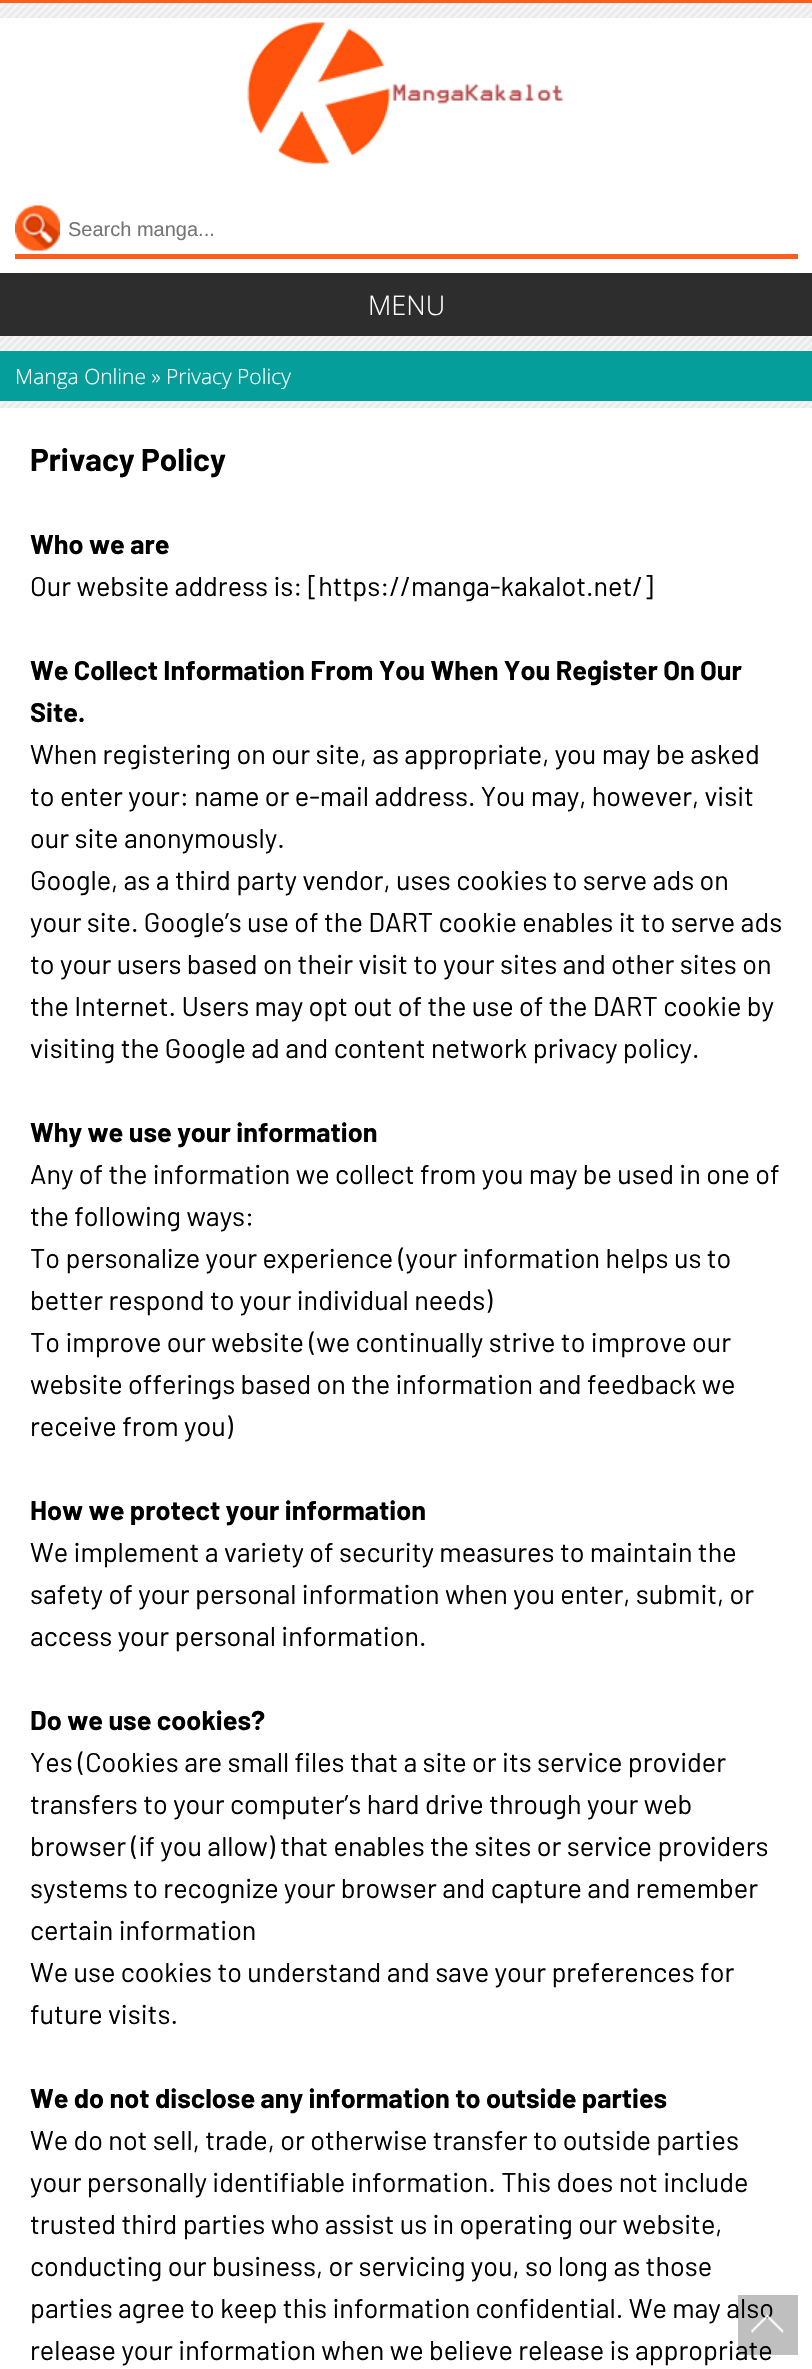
void draw(SkCanvas* canvas) {
	SkPaint fill;
	fill.setAntiAlias(true);
	auto makeFont = [&](const char* family, int weight, float size, bool italic = false) {
		SkFontStyle style(weight, SkFontStyle::kNormal_Width,
			italic ? SkFontStyle::kItalic_Slant : SkFontStyle::kUpright_Slant);
		SkFont result(fontMgr->matchFamilyStyle(family, style), size);
		result.setSubpixel(true);
		return result;
	};
	auto text = [&](const char* s, float x, float y, const SkFont& font) {
		canvas->drawString(s, x, y, font, fill);
	};
	auto box = [&](float l, float t, float r, float b) {
		canvas->drawRect(SkRect::MakeLTRB(l, t, r, b), fill);
	};
	auto picture = [&](const char* path, float l, float t, float r, float b) {
		auto image = SkImages::DeferredFromEncodedData(SkData::MakeFromFileName(path));
		canvas->drawImageRect(image, SkRect::MakeLTRB(l, t, r, b), SkSamplingOptions());
	};
	canvas->clear(0xFFFFFFFF);
	picture("image0.png", 0, 3, 812, 408);
	fill.setColor(0xFFFF5C19);
	box(0, 0, 812, 3);
	fill.setColor(0xFFFFFFFF);
	box(0, 18, 812, 273);
	picture("image1.png", 247, 22, 563, 164);
	picture("image2.png", 15, 205, 60, 251);
	fill.setColor(0xFFFD5E1E);
	box(15, 254, 798, 259);
	fill.setColor(0xFF2E2D2D);
	box(0, 273, 812, 336);
	fill.setColor(0xFF059E9A);
	box(0, 351, 812, 401);
	auto font1 = makeFont("Liberation Sans", 400, 20);
	fill.setColor(0xFF757575);
	text("Search manga...", 68, 236, font1);
	auto font2 = makeFont("Open Sans", 300, 27);
	fill.setColor(0xFFFFFFFF);
	text("MENU", 368, 315, font2);
	auto font3 = makeFont("Open Sans", 300, 21);
	text("Manga Online » Privacy Policy", 15, 384, font3);
	auto font4 = makeFont("Barlow", 700, 31.5f);
	fill.setColor(0xFF000000);
	text("Privacy Policy", 30, 471, font4);
	auto font5 = makeFont("Barlow", 700, 27);
	text("Who we are", 30, 554, font5);
	auto font6 = makeFont("Barlow", 400, 27);
	text("Our website address is: [https://manga-kakalot.net/]", 30, 596, font6);
	text("We Collect Information From You When You Register On Our", 30, 680, font5);
	text("Site.", 30, 722, font5);
	text("When registering on our site, as appropriate, you may be asked", 30, 764, font6);
	text("to enter your: name or e-mail address. You may, however, visit", 30, 806, font6);
	text("our site anonymously.", 30, 848, font6);
	text("Google, as a third party vendor, uses cookies to serve ads on", 30, 890, font6);
	text("your site. Google’s use of the DART cookie enables it to serve ads", 30, 932, font6);
	text("to your users based on their visit to your sites and other sites on", 30, 974, font6);
	text("the Internet. Users may opt out of the use of the DART cookie by", 30, 1016, font6);
	text("visiting the Google ad and content network privacy policy.", 30, 1058, font6);
	text("Why we use your information", 30, 1142, font5);
	text("Any of the information we collect from you may be used in one of", 30, 1184, font6);
	text("the following ways:", 30, 1226, font6);
	text("To personalize your experience (your information helps us to", 30, 1268, font6);
	text("better respond to your individual needs)", 30, 1310, font6);
	text("To improve our website (we continually strive to improve our", 30, 1352, font6);
	text("website offerings based on the information and feedback we", 30, 1394, font6);
	text("receive from you)", 30, 1436, font6);
	text("How we protect your information", 30, 1520, font5);
	text("We implement a variety of security measures to maintain the", 30, 1562, font6);
	text("safety of your personal information when you enter, submit, or", 30, 1604, font6);
	text("access your personal information.", 30, 1646, font6);
	text("Do we use cookies?", 30, 1730, font5);
	text("Yes (Cookies are small files that a site or its service provider", 30, 1772, font6);
	text("transfers to your computer’s hard drive through your web", 30, 1814, font6);
	text("browser (if you allow) that enables the sites or service providers", 30, 1856, font6);
	text("systems to recognize your browser and capture and remember", 30, 1898, font6);
	text("certain information", 30, 1940, font6);
	text("We use cookies to understand and save your preferences for", 30, 1982, font6);
	text("future visits.", 30, 2024, font6);
	text("We do not disclose any information to outside parties", 30, 2108, font5);
	text("We do not sell, trade, or otherwise transfer to outside parties", 30, 2150, font6);
	text("your personally identifiable information. This does not include", 30, 2192, font6);
	text("trusted third parties who assist us in operating our website,", 30, 2234, font6);
	text("conducting our business, or servicing you, so long as those", 30, 2276, font6);
	text("parties agree to keep this information confidential. We may also", 30, 2318, font6);
	text("release your information when we believe release is appropriate", 30, 2360, font6);
	picture("image3.png", 738, 2295, 798, 2355);
}
